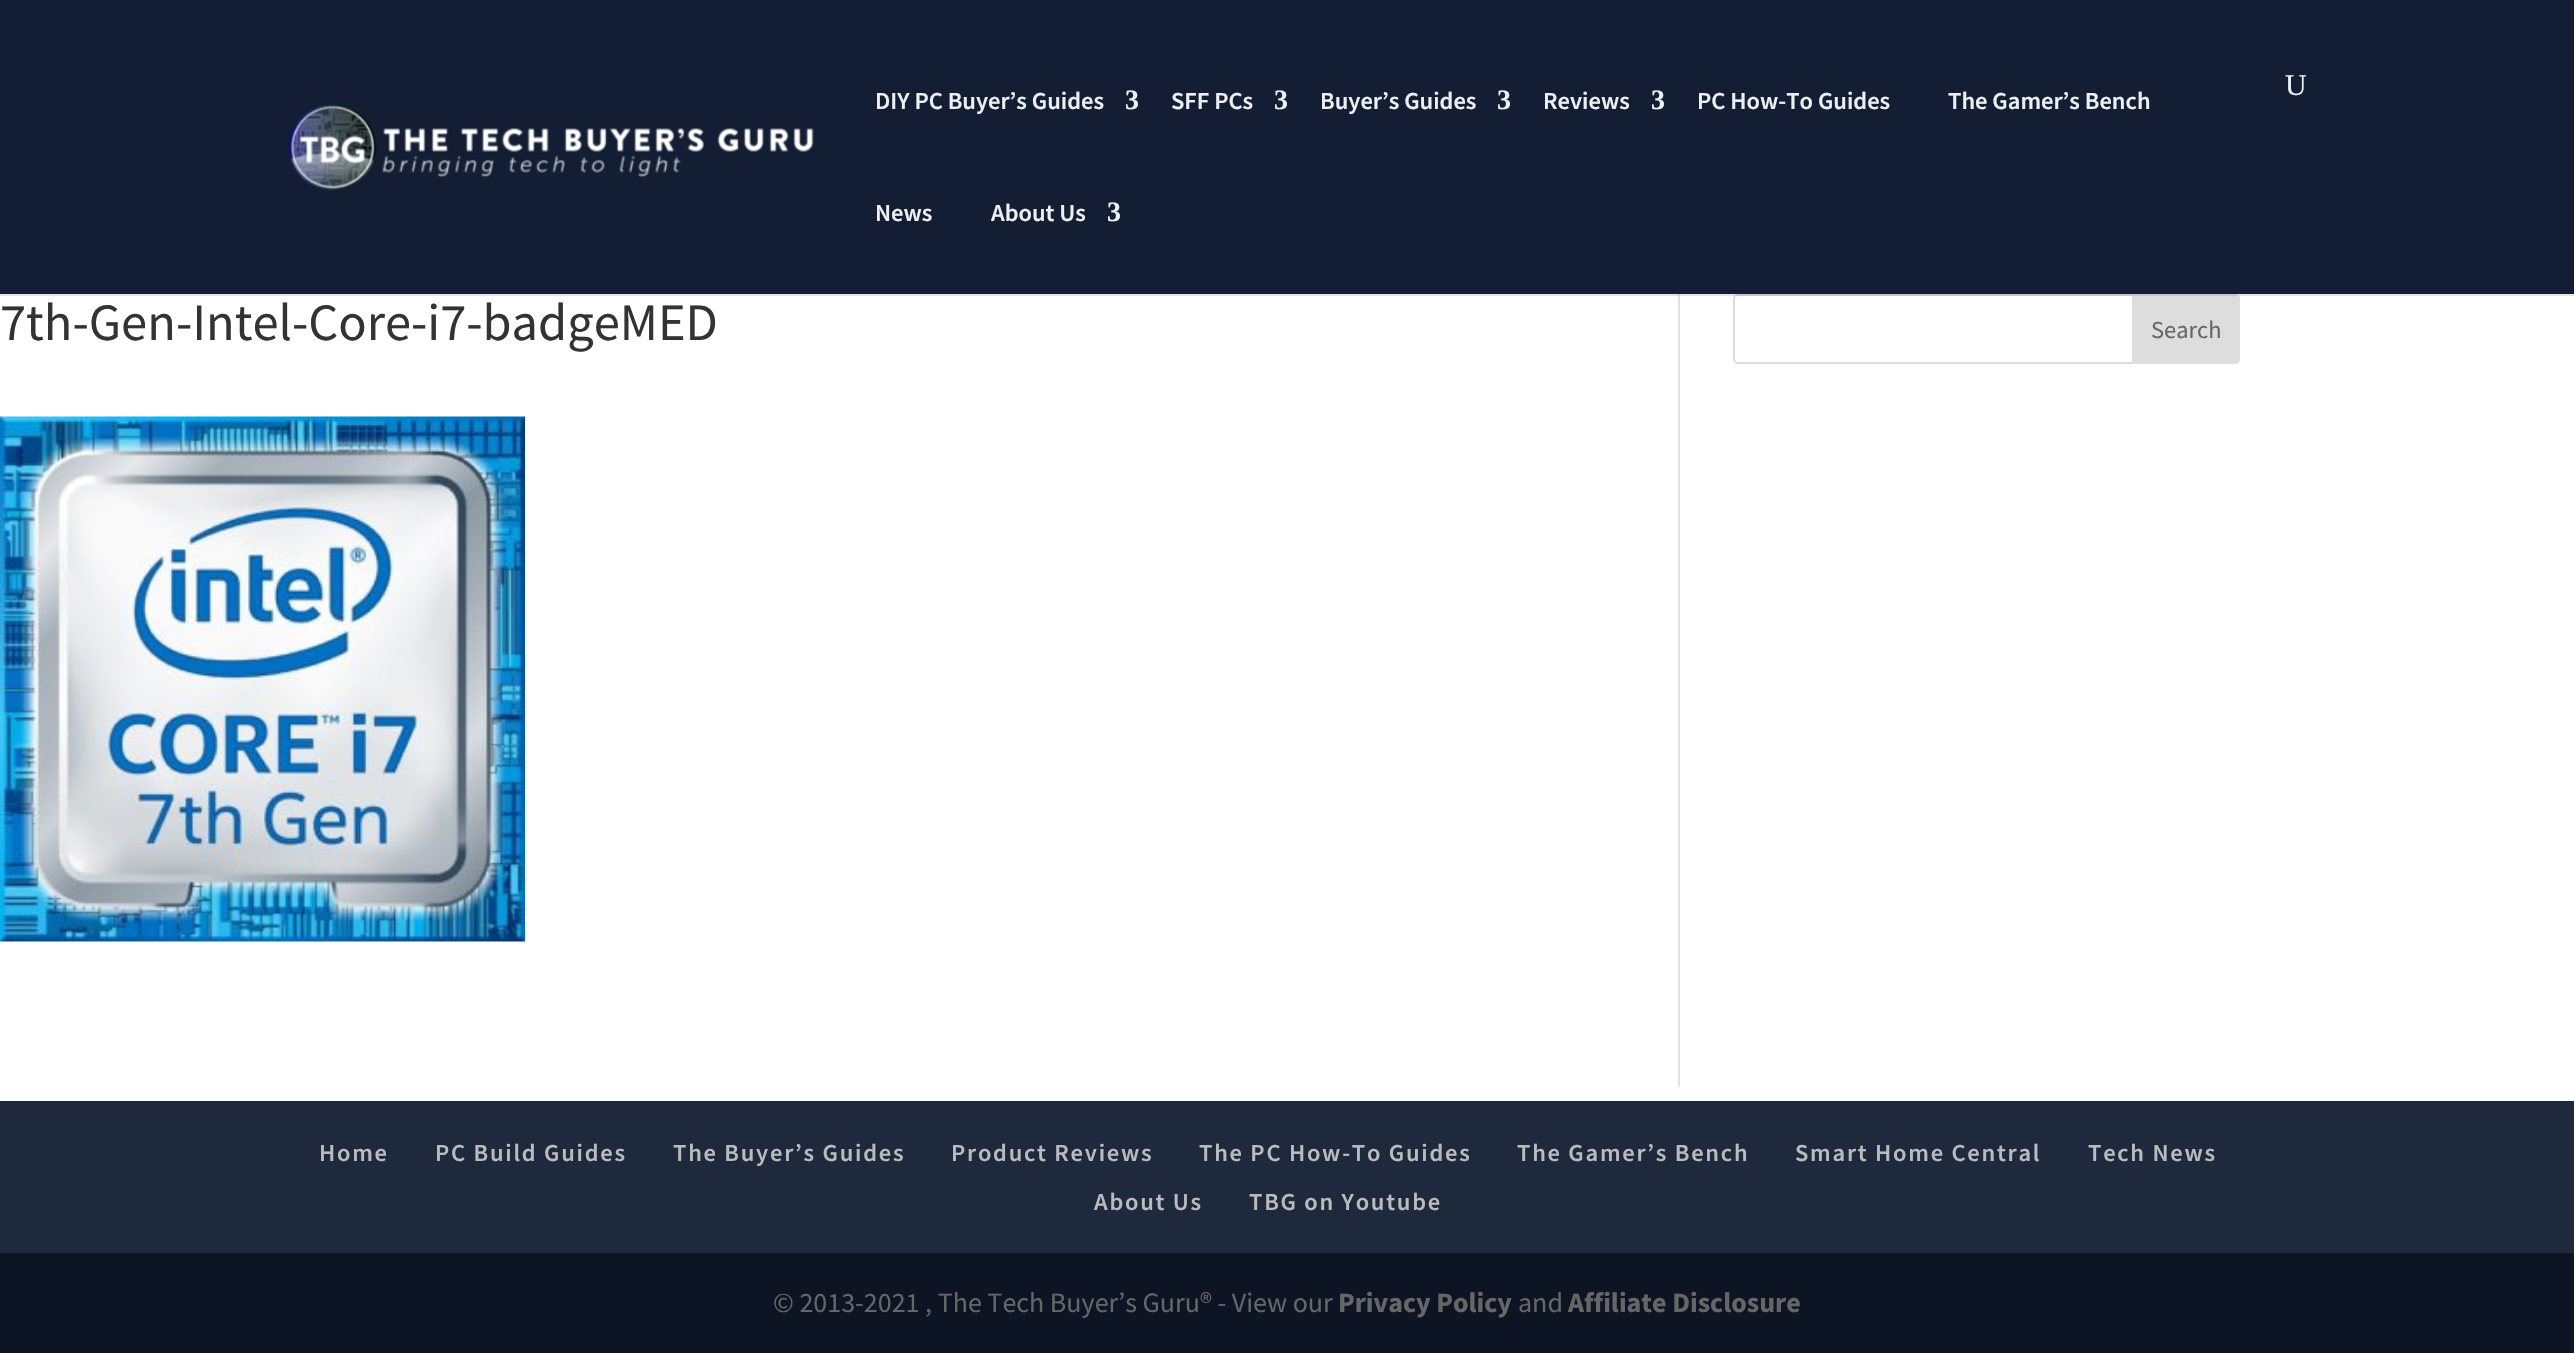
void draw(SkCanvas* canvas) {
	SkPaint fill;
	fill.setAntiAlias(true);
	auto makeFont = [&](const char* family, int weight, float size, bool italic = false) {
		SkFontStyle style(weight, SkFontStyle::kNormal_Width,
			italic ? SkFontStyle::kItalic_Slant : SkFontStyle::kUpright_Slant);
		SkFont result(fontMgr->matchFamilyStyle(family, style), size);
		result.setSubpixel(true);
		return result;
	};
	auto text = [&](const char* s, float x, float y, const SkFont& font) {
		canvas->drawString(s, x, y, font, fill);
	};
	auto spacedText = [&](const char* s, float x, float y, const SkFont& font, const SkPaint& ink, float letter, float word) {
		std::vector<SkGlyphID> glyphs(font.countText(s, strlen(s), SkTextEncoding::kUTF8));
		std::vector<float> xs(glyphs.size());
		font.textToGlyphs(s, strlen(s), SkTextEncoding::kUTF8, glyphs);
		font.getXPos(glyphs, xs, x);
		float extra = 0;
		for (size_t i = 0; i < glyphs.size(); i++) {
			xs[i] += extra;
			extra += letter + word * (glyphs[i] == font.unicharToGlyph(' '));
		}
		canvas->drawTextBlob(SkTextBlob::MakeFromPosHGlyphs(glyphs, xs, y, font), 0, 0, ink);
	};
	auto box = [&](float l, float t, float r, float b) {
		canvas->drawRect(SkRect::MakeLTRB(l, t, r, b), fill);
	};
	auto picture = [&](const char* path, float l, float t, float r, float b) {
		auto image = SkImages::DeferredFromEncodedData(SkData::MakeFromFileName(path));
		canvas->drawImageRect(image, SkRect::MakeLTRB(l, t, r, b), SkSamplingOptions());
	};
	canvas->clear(0xFFFFFFFF);
	fill.setColor(0xFFE2E2E2);
	box(1678, 294, 1680, 1087);
	fill.setStyle(SkPaint::kStroke_Style);
	fill.setStrokeWidth(2);
	fill.setColor(0xFFDDDDDD);
	canvas->drawRoundRect(SkRect::MakeLTRB(1734, 295, 2239, 363), 4, 4, fill);
	fill.setStyle(SkPaint::kFill_Style);
	canvas->drawPath(SkPathBuilder().moveTo(2133, 295).lineTo(2235, 295).cubicTo(2237, 295, 2239, 297, 2239, 299).lineTo(2239, 359).cubicTo(2239, 361, 2237, 363, 2235, 363).lineTo(2133, 363).close().detach(), fill);
	fill.setStyle(SkPaint::kStroke_Style);
	canvas->drawPath(SkPathBuilder().moveTo(2133, 295).lineTo(2235, 295).cubicTo(2237, 295, 2239, 297, 2239, 299).lineTo(2239, 359).cubicTo(2239, 361, 2237, 363, 2235, 363).lineTo(2133, 363).close().detach(), fill);
	fill.setStyle(SkPaint::kFill_Style);
	fill.setColor(0x1A000000);
	box(0, 294, 2574, 296);
	fill.setColor(0xFF131E34);
	box(0, 0, 2574, 294);
	picture("image0.png", 289, 103, 814, 191);
	picture("image1.png", 0, 416, 525, 942);
	fill.setColor(0xFF1F293E);
	box(0, 1101, 2574, 1253);
	fill.setColor(0xFF0D1423);
	box(0, 1253, 2574, 1353);
	auto font1 = makeFont("Liberation Serif", 400, 30);
	fill.setColor(0xFFEEEFF1);
	text("U", 2285, 95, font1);
	auto font2 = makeFont("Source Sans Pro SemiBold", 600, 24.5f);
	text("DIY PC Buyer’s Guides", 875, 109, font2);
	auto font3 = makeFont("Liberation Serif", 700, 28);
	text("3", 1125, 109, font3);
	text("SFF PCs", 1171, 109, font2);
	text("3", 1274, 109, font3);
	text("Buyer’s Guides", 1320, 109, font2);
	text("3", 1497, 109, font3);
	text("Reviews", 1543, 109, font2);
	text("3", 1651, 109, font3);
	text("PC How-To Guides", 1697, 109, font2);
	text("The Gamer’s Bench", 1948, 109, font2);
	text("News", 875, 221, font2);
	text("About Us", 991, 221, font2);
	text("3", 1107, 221, font3);
	auto font4 = makeFont("Source Sans Pro", 400, 52.5f);
	fill.setColor(0xFF333333);
	text("7th-Gen-Intel-Core-i7-badgeMED", 0, 340, font4);
	auto font5 = makeFont("Source Sans Pro", 400, 24.5f);
	fill.setColor(0xFF666666);
	text("Search", 2151, 338, font5);
	fill.setColor(0xFFBBBBBB);
	spacedText("Home", 319, 1161, font2, fill, 1.75f, 0);
	spacedText("PC Build Guides", 435, 1161, font2, fill, 1.75f, 0);
	spacedText("The Buyer’s Guides", 673, 1161, font2, fill, 1.75f, 0);
	spacedText("Product Reviews", 951, 1161, font2, fill, 1.75f, 0);
	spacedText("The PC How-To Guides", 1199, 1161, font2, fill, 1.75f, 0);
	spacedText("The Gamer’s Bench", 1517, 1161, font2, fill, 1.75f, 0);
	spacedText("Smart Home Central", 1795, 1161, font2, fill, 1.75f, 0);
	spacedText("Tech News", 2088, 1161, font2, fill, 1.75f, 0);
	spacedText("About Us", 1094, 1210, font2, fill, 1.75f, 0);
	spacedText("TBG on Youtube", 1249, 1210, font2, fill, 1.75f, 0);
	auto font6 = makeFont("Source Sans Pro", 400, 28);
	fill.setColor(0xFF666666);
	text("© 2013-2021 , The Tech Buyer’s Guru® - View our", 773, 1312, font6);
	auto font7 = makeFont("Source Sans Pro", 700, 28);
	text("Privacy Policy", 1338, 1312, font7);
	text("and", 1518, 1312, font6);
	text("Affiliate Disclosure", 1568, 1312, font7);
}
